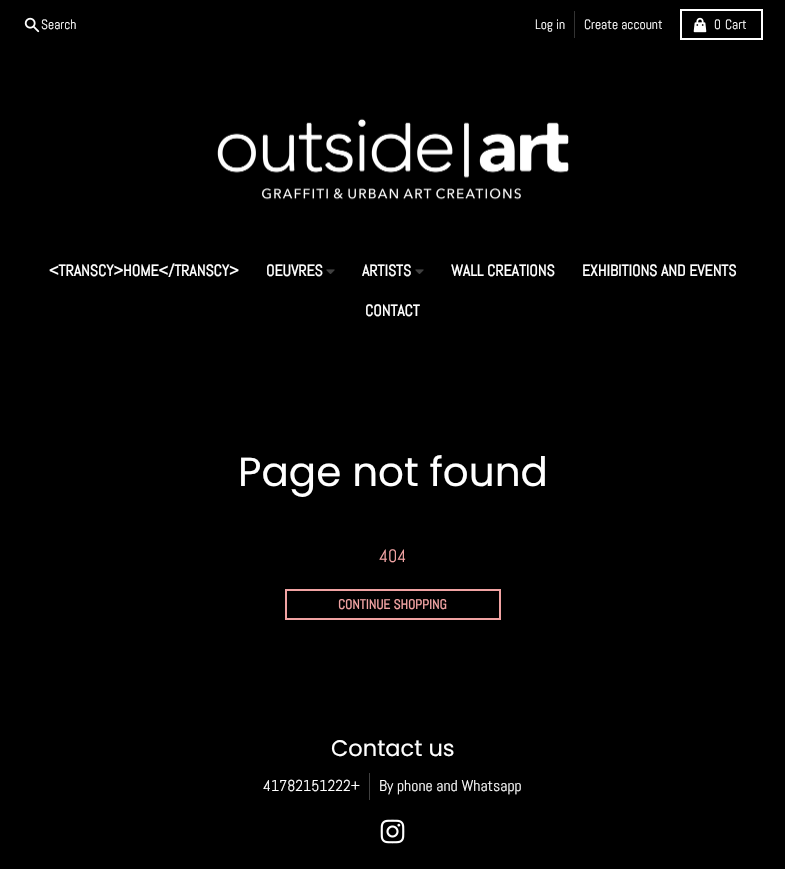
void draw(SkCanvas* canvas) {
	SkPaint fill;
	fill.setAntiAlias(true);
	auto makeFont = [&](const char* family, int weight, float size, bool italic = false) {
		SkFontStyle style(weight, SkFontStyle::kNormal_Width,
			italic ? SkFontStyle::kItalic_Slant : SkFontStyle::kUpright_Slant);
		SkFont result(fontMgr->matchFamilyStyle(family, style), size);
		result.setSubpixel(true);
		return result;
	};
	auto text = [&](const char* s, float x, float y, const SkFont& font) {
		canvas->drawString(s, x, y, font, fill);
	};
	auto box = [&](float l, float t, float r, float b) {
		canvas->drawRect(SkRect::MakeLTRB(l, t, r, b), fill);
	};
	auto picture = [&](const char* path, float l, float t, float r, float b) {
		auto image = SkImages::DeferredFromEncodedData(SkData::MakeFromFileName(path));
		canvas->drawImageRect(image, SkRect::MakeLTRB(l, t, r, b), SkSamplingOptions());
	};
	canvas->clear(0xFF000000);
	picture("image0.png", 24, 17, 40, 33);
	fill.setColor(0xFF333333);
	box(574, 11, 575, 38);
	fill.setStyle(SkPaint::kStroke_Style);
	fill.setStrokeWidth(2);
	fill.setColor(0xFFFFFFFF);
	canvas->drawRect(SkRect::MakeLTRB(681, 10, 762, 39), fill);
	picture("image1.png", 693, 17, 707, 33);
	picture("image2.png", 217, 118, 569, 200);
	picture("image3.png", 326, 269, 335, 274);
	picture("image3.png", 415, 269, 424, 274);
	fill.setColor(0xFFF1A3A3);
	canvas->drawRect(SkRect::MakeLTRB(286, 590, 500, 619), fill);
	fill.setStyle(SkPaint::kFill_Style);
	fill.setColor(0xFF404040);
	box(369, 773, 370, 800);
	picture("image4.png", 380, 819, 405, 844);
	auto font1 = makeFont("Abel", 400, 13.5f);
	fill.setColor(0xFFFFFFFF);
	text("Search", 41, 29, font1);
	text("Log in", 535, 29, font1);
	text("Create account", 584, 29, font1);
	text("0", 714, 29, font1);
	text("Cart", 725, 29, font1);
	auto font2 = makeFont("Abel", 700, 15.75f);
	text("<TRANSCY>HOME</TRANSCY>", 49, 276, font2);
	text("OEUVRES", 266, 276, font2);
	text("ARTISTS", 362, 276, font2);
	text("WALL CREATIONS", 451, 276, font2);
	text("EXHIBITIONS AND EVENTS", 582, 276, font2);
	text("CONTACT", 365, 316, font2);
	auto font3 = makeFont("Poppins", 400, 40.5f);
	text("Page not found", 238, 486, font3);
	auto font4 = makeFont("Abel", 400, 18);
	fill.setColor(0xFFF1A3A3);
	text("404", 379, 562, font4);
	auto font5 = makeFont("Abel", 700, 13.5f);
	text("CONTINUE SHOPPING", 338, 609, font5);
	auto font6 = makeFont("Poppins", 400, 22.5f);
	fill.setColor(0xFFFFFFFF);
	text("Contact us", 331, 756, font6);
	auto font7 = makeFont("Abel", 400, 15.75f);
	text("41782151222+", 263, 791, font7);
	text("By phone and Whatsapp", 379, 791, font7);
}
